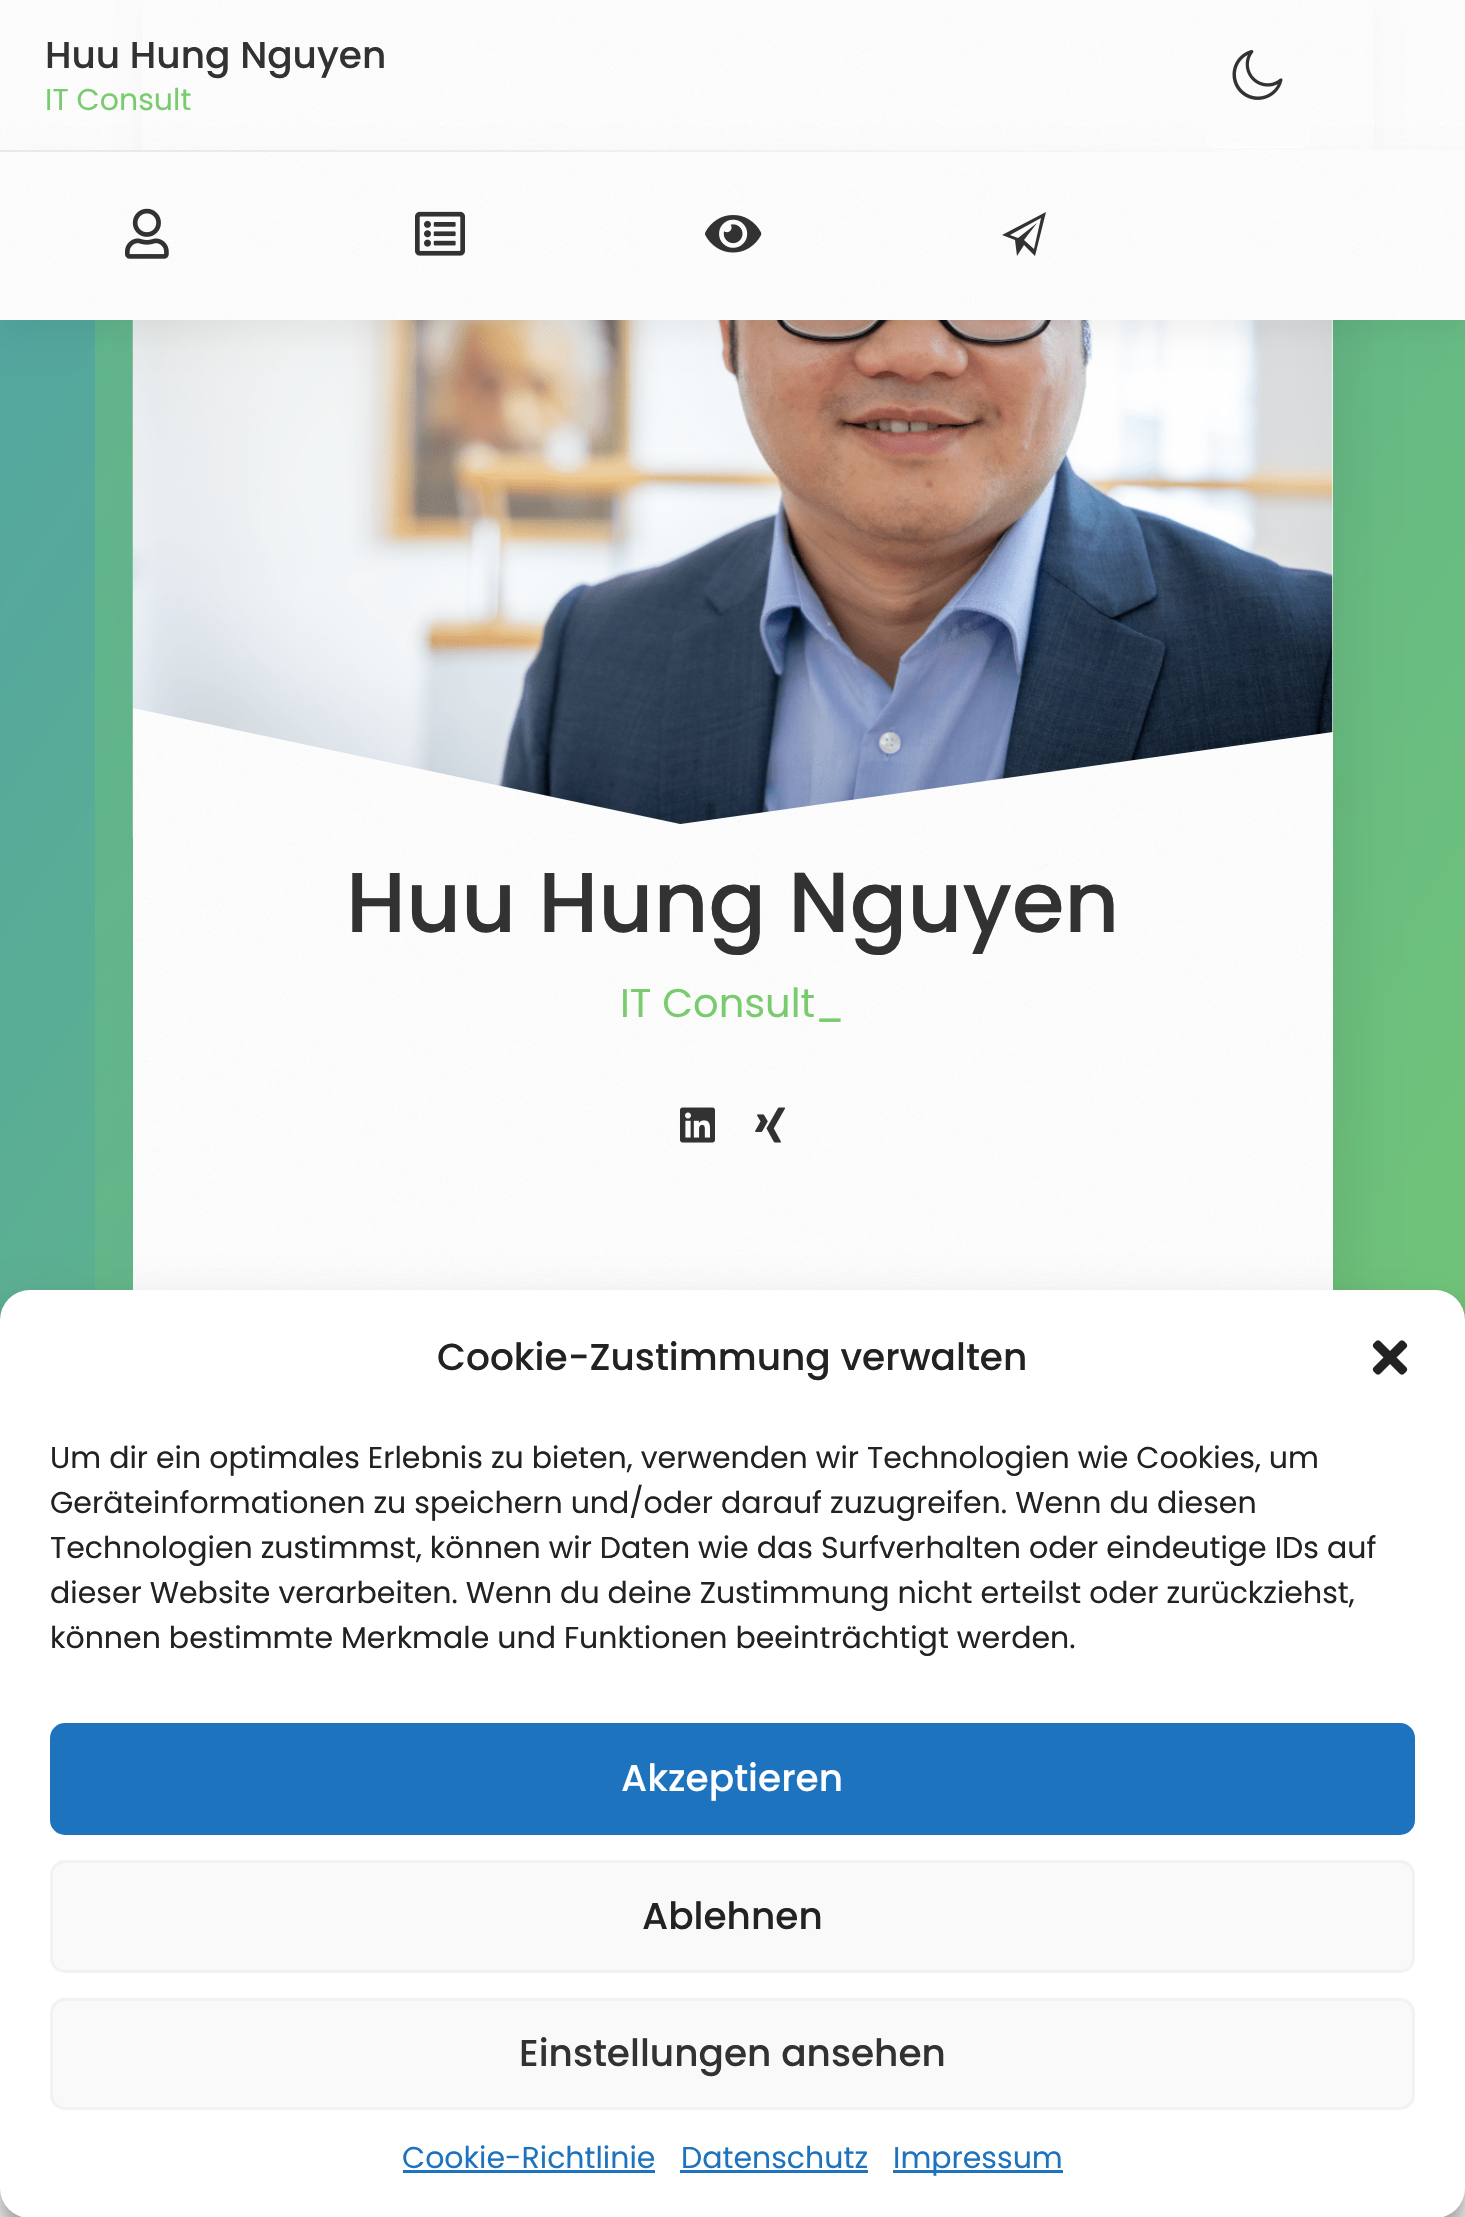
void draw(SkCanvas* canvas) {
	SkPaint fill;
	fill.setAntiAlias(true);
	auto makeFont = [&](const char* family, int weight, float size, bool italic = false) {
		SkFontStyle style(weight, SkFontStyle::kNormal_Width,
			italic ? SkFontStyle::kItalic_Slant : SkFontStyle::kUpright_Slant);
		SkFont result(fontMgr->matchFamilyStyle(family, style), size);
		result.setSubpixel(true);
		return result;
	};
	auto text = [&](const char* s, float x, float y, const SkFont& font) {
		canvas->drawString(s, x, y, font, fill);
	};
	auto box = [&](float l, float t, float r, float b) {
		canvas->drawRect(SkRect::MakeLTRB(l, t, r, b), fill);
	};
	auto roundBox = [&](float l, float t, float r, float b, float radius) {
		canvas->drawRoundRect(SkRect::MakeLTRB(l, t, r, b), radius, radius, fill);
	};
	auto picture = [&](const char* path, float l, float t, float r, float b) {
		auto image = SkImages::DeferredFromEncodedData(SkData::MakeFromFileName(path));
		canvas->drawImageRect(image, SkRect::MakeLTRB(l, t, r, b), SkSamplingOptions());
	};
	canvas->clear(0xFFFFFFFF);
	{
		const SkColor colors[] = {0xFF50A3A2, 0xFF78CC6D};
		const float stops[] = {0, 1};
		const SkPoint ends[] = {{-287, 435}, {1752, 1783}};
		fill.setShader(SkGradientShader::MakeLinear(ends, colors, stops, 2, SkTileMode::kClamp));
		fill.setAlpha(255);
	}
	box(0, 320, 1465, 1320);
	fill.setShader(nullptr);
	fill.setColor(0x0D000000);
	fill.setMaskFilter(SkMaskFilter::MakeBlur(kNormal_SkBlurStyle, 19));
	canvas->drawRoundRect(SkRect::MakeLTRB(158, 10, 1358, 1560), 10, 10, fill);
	fill.setMaskFilter(nullptr);
	fill.setColor(0xFFFFFFFF);
	box(142, 0, 1374, 150);
	picture("image0.png", 0, 0, 1465, 150);
	{
		const SkColor colors[] = {0x6678CC6D, 0x0378CC6D};
		const float stops[] = {0, 1};
		const SkPoint ends[] = {{7.5f, 35}, {1383, 1410}};
		fill.setShader(SkGradientShader::MakeLinear(ends, colors, stops, 2, SkTileMode::kClamp));
		fill.setAlpha(255);
	}
	box(95, 320, 133, 1290);
	fill.setShader(nullptr);
	fill.setColor(0xFFFFFFFF);
	box(1332, 320, 1333, 733);
	fill.setColor(0x1A78CC6D);
	box(1332, 320, 1333, 733);
	picture("image7.png", 132, 320, 1333, 838);
	fill.setColor(0x0D000000);
	fill.setMaskFilter(SkMaskFilter::MakeBlur(kNormal_SkBlurStyle, 12.5f));
	canvas->drawRect(SkRect::MakeLTRB(0, 163, 1465, 333), fill);
	fill.setMaskFilter(nullptr);
	fill.setColor(0xFFFFFFFF);
	canvas->drawPath(SkPathBuilder().moveTo(1205, 0).lineTo(1310, 0).lineTo(1310, 138).cubicTo(1310, 143.5f, 1305.5f, 148, 1300, 148).lineTo(1215, 148).cubicTo(1209.5f, 148, 1205, 143.5f, 1205, 138).close().detach(), fill);
	picture("image1.png", 1205, 0, 1310, 147);
	picture("image2.png", 1232, 50, 1283, 100);
	box(0, 150, 1465, 320);
	picture("image3.png", 0, 150, 1465, 320);
	{
		const SkColor colors[] = {0xFFDDDDDD, 0x00DDDDDD};
		const float stops[] = {0, 0.7f};
		SkMatrix m = SkMatrix::Translate(0, 151).preScale(2072, 1.8f);
		fill.setShader(SkGradientShader::MakeRadial({0, 0}, 1, colors, stops, 2, SkTileMode::kClamp, 0, &m));
		fill.setAlpha(255);
	}
	box(0, 150, 1228, 152);
	picture("image4.png", 125, 208, 169, 259);
	picture("image5.png", 415, 211, 465, 256);
	picture("image6.png", 705, 215, 762, 253);
	fill.setShader(nullptr);
	fill.setColor(0xFF323232);
	canvas->drawPath(SkPathBuilder().moveTo(1002, 235).lineTo(1046, 212).lineTo(1035, 256).lineTo(1024, 245).lineTo(1017, 256).lineTo(1015, 240).close().moveTo(1034, 249).lineTo(1041, 218).lineTo(1010, 235).lineTo(1018, 238).lineTo(1037, 223).lineTo(1024, 240).close().detach(), fill);
	fill.setColor(0xFFFFFFFF);
	canvas->drawPath(SkPathBuilder().moveTo(133, 1317).lineTo(133, 708).lineTo(1081, 909).lineTo(957, 1493).close().detach(), fill);
	picture("image8.png", 132, 708, 681, 1290);
	canvas->drawPath(SkPathBuilder().moveTo(397, 864).lineTo(1333, 732).lineTo(1333, 1335).lineTo(480, 1455).close().detach(), fill);
	picture("image9.png", 397, 733, 1333, 1290);
	picture("image10.png", 680, 1107, 715, 1143);
	picture("image11.png", 755, 1107, 785, 1143);
	picture("image13.png", 0, 2188, 1465, 2217);
	fill.setColor(0x3B000000);
	fill.setMaskFilter(SkMaskFilter::MakeBlur(kNormal_SkBlurStyle, 7.5f));
	canvas->drawRoundRect(SkRect::MakeLTRB(0, 1305, 1465, 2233), 30, 30, fill);
	fill.setMaskFilter(nullptr);
	fill.setColor(0x30000000);
	fill.setMaskFilter(SkMaskFilter::MakeBlur(kNormal_SkBlurStyle, 25));
	canvas->drawRoundRect(SkRect::MakeLTRB(0, 1315, 1465, 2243), 30, 30, fill);
	fill.setMaskFilter(nullptr);
	fill.setColor(0xFFFFFFFF);
	roundBox(0, 1290, 1465, 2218, 30);
	picture("image12.png", 1372, 1340, 1408, 1375);
	fill.setColor(0xFF1E73BE);
	canvas->drawRoundRect(SkRect::MakeLTRB(51.5f, 1724.5f, 1413.5f, 1833.5f), 13.5f, 13.5f, fill);
	fill.setStyle(SkPaint::kStroke_Style);
	fill.setStrokeWidth(3);
	canvas->drawRoundRect(SkRect::MakeLTRB(51.5f, 1724.5f, 1413.5f, 1833.5f), 13.5f, 13.5f, fill);
	fill.setStyle(SkPaint::kFill_Style);
	fill.setColor(0xFFF9F9F9);
	canvas->drawRoundRect(SkRect::MakeLTRB(51.5f, 1861.5f, 1413.5f, 1971.5f), 13.5f, 13.5f, fill);
	fill.setStyle(SkPaint::kStroke_Style);
	fill.setColor(0xFFF2F2F2);
	canvas->drawRoundRect(SkRect::MakeLTRB(51.5f, 1861.5f, 1413.5f, 1971.5f), 13.5f, 13.5f, fill);
	fill.setStyle(SkPaint::kFill_Style);
	fill.setColor(0xFFF9F9F9);
	canvas->drawRoundRect(SkRect::MakeLTRB(51.5f, 1999.5f, 1413.5f, 2108.5f), 13.5f, 13.5f, fill);
	fill.setStyle(SkPaint::kStroke_Style);
	fill.setColor(0xFFF2F2F2);
	canvas->drawRoundRect(SkRect::MakeLTRB(51.5f, 1999.5f, 1413.5f, 2108.5f), 13.5f, 13.5f, fill);
	fill.setStyle(SkPaint::kFill_Style);
	fill.setColor(0xFF1E73BE);
	box(403, 2170, 655, 2173);
	box(680, 2170, 868, 2173);
	box(893, 2170, 1063, 2173);
	auto font1 = makeFont("Poppins", 500, 37.5f);
	fill.setColor(0xFF323232);
	text("Huu Hung Nguyen", 45, 68, font1);
	auto font2 = makeFont("Poppins", 400, 30);
	fill.setColor(0xFF78CC6D);
	text("IT Consult", 45, 110, font2);
	auto font3 = makeFont("Poppins", 500, 85);
	fill.setColor(0xFF323232);
	text("Huu Hung Nguyen", 346, 932, font3);
	auto font4 = makeFont("Poppins", 400, 40);
	fill.setColor(0xFF78CC6D);
	text("IT Consult_", 620, 1017, font4);
	fill.setColor(0xFF222222);
	text("Cookie-Zustimmung verwalten", 437, 1370, font1);
	text("Um dir ein optimales Erlebnis zu bieten, verwenden wir Technologien wie Cookies, um", 50, 1468, font2);
	text("Geräteinformationen zu speichern und/oder darauf zuzugreifen. Wenn du diesen", 50, 1513, font2);
	text("Technologien zustimmst, können wir Daten wie das Surfverhalten oder eindeutige IDs auf", 50, 1558, font2);
	text("dieser Website verarbeiten. Wenn du deine Zustimmung nicht erteilst oder zurückziehst,", 50, 1603, font2);
	text("können bestimmte Merkmale und Funktionen beeinträchtigt werden.", 50, 1648, font2);
	fill.setColor(0xFFFFFFFF);
	text("Akzeptieren", 621, 1791, font1);
	fill.setColor(0xFF222222);
	text("Ablehnen", 642, 1929, font1);
	fill.setColor(0xFF323232);
	text("Einstellungen ansehen", 519, 2066, font1);
	fill.setColor(0xFF1E73BE);
	text("Cookie-Richtlinie", 402, 2168, font2);
	text("Datenschutz", 681, 2168, font2);
	text("Impressum", 893, 2168, font2);
}
